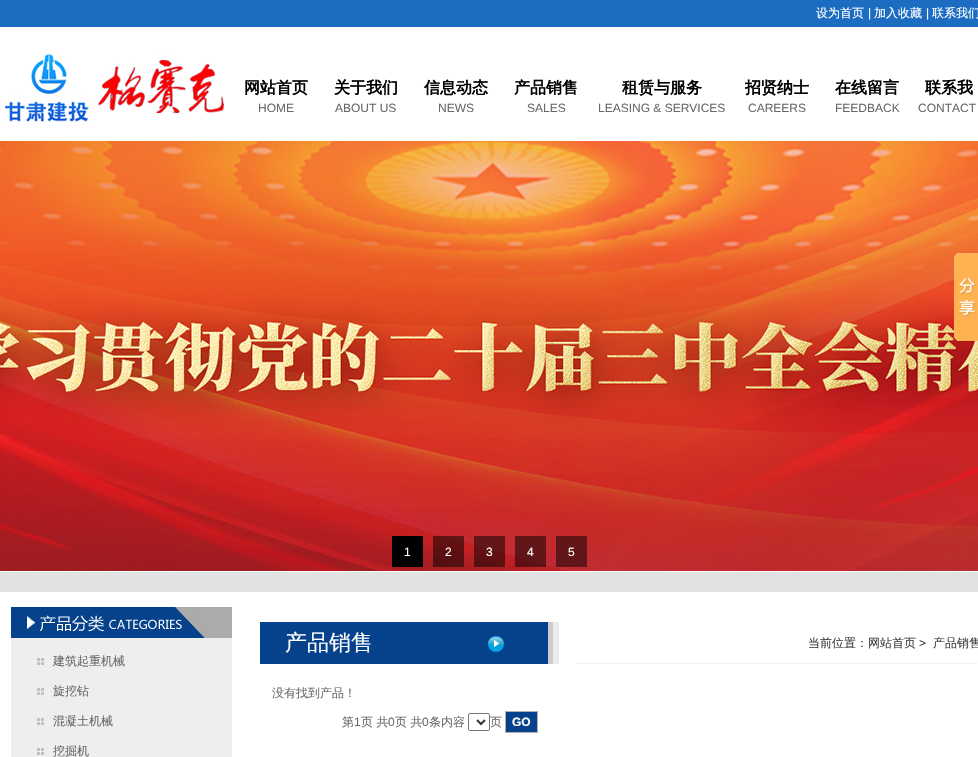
void draw(SkCanvas* canvas) {
	SkPaint fill;
	fill.setAntiAlias(true);
	auto makeFont = [&](const char* family, int weight, float size, bool italic = false) {
		SkFontStyle style(weight, SkFontStyle::kNormal_Width,
			italic ? SkFontStyle::kItalic_Slant : SkFontStyle::kUpright_Slant);
		SkFont result(fontMgr->matchFamilyStyle(family, style), size);
		result.setSubpixel(true);
		return result;
	};
	auto text = [&](const char* s, float x, float y, const SkFont& font) {
		canvas->drawString(s, x, y, font, fill);
	};
	auto box = [&](float l, float t, float r, float b) {
		canvas->drawRect(SkRect::MakeLTRB(l, t, r, b), fill);
	};
	auto picture = [&](const char* path, float l, float t, float r, float b) {
		auto image = SkImages::DeferredFromEncodedData(SkData::MakeFromFileName(path));
		canvas->drawImageRect(image, SkRect::MakeLTRB(l, t, r, b), SkSamplingOptions());
	};
	canvas->clear(0xFFE1E2E2);
	fill.setColor(0xFF1C6DC1);
	box(0, 0, 978, 27);
	fill.setColor(0xFFFFFFFF);
	box(0, 27, 978, 141);
	picture("image0.png", 2, 54, 224, 124);
	picture("image2.png", 0, 141, 978, 571);
	picture("image1.png", 954, 253, 978, 341);
	fill.setColor(0xFF000000);
	box(392, 536, 423, 567);
	fill.setColor(0x80000000);
	box(433, 536, 464, 567);
	box(474, 536, 505, 567);
	box(515, 536, 546, 567);
	box(556, 536, 587, 567);
	fill.setColor(0xFFFDFFFC);
	box(0, 571, 978, 572);
	fill.setColor(0xFFFFFFFF);
	box(0, 592, 978, 757);
	fill.setColor(0xFFEEEEEE);
	box(11, 638, 232, 757);
	picture("image3.png", 11, 607, 232, 638);
	picture("image4.png", 37, 658, 44, 665);
	picture("image4.png", 37, 688, 44, 695);
	picture("image4.png", 37, 718, 44, 725);
	picture("image4.png", 37, 748, 44, 755);
	picture("image5.png", 260, 622, 559, 664);
	picture("image6.png", 576, 663, 977, 664);
	fill.setStyle(SkPaint::kStroke_Style);
	fill.setStrokeWidth(1);
	fill.setColor(0xFF767676);
	canvas->drawRoundRect(SkRect::MakeLTRB(468.5f, 713.5f, 489.5f, 730.5f), 1.5f, 1.5f, fill);
	fill.setStrokeWidth(2);
	fill.setColor(0xFF363636);
	canvas->drawPath(SkPathBuilder().moveTo(477, 720).lineTo(481, 724).lineTo(485, 720).detach(), fill);
	fill.setStyle(SkPaint::kFill_Style);
	fill.setColor(0xFF06428B);
	canvas->drawRect(SkRect::MakeLTRB(505.5f, 711.5f, 537.5f, 732.5f), fill);
	fill.setStyle(SkPaint::kStroke_Style);
	fill.setStrokeWidth(1);
	fill.setColor(0xFFB1B1B1);
	canvas->drawRect(SkRect::MakeLTRB(505.5f, 711.5f, 537.5f, 732.5f), fill);
	auto font1 = makeFont("WenQuanYi Zen Hei", 500, 12);
	fill.setStyle(SkPaint::kFill_Style);
	fill.setColor(0xFFFFFFFF);
	text("设为首页", 816, 17, font1);
	auto font2 = makeFont("Liberation Sans", 400, 12);
	text("|", 868, 17, font2);
	text("加入收藏", 874, 17, font1);
	text("|", 926, 17, font2);
	text("联系我们", 932, 17, font1);
	auto font3 = makeFont("WenQuanYi Zen Hei", 700, 16);
	fill.setColor(0xFF000000);
	text("网站首页", 244, 93, font3);
	fill.setColor(0xFF696969);
	text("HOME", 258, 112, font2);
	fill.setColor(0xFF000000);
	text("关于我们", 334, 93, font3);
	fill.setColor(0xFF696969);
	text("ABOUT US", 335, 112, font2);
	fill.setColor(0xFF000000);
	text("信息动态", 424, 93, font3);
	fill.setColor(0xFF696969);
	text("NEWS", 438, 112, font2);
	fill.setColor(0xFF000000);
	text("产品销售", 514, 93, font3);
	fill.setColor(0xFF696969);
	text("SALES", 527, 112, font2);
	fill.setColor(0xFF000000);
	text("租赁与服务", 622, 93, font3);
	fill.setColor(0xFF696969);
	text("LEASING & SERVICES", 598, 112, font2);
	fill.setColor(0xFF000000);
	text("招贤纳士", 745, 93, font3);
	fill.setColor(0xFF696969);
	text("CAREERS", 748, 112, font2);
	fill.setColor(0xFF000000);
	text("在线留言", 835, 93, font3);
	fill.setColor(0xFF696969);
	text("FEEDBACK", 835, 112, font2);
	fill.setColor(0xFF000000);
	text("联系我", 925, 93, font3);
	fill.setColor(0xFF696969);
	text("CONTACT", 918, 112, font2);
	fill.setColor(0xFFFFFFFF);
	text("1", 404, 556, font2);
	text("2", 445, 556, font2);
	text("3", 486, 556, font2);
	text("4", 527, 556, font2);
	text("5", 568, 556, font2);
	fill.setColor(0xFF696969);
	text("建筑起重机械", 53, 665, font1);
	text("旋挖钻", 53, 695, font1);
	text("混凝土机械", 53, 725, font1);
	text("挖掘机", 53, 755, font1);
	auto font4 = makeFont("WenQuanYi Zen Hei", 500, 22);
	fill.setColor(0xFFFFFFFF);
	text("产品销售", 285, 650, font4);
	fill.setColor(0xFF3F3F3F);
	text("当前位置：网站首页", 808, 647, font1);
	text(">", 919, 647, font2);
	text("产品销售", 933, 647, font1);
	fill.setColor(0xFF696969);
	text("没有找到产品！", 272, 697, font1);
	text("第", 342, 726, font1);
	text("1", 354, 726, font2);
	text("页 共", 361, 726, font1);
	text("0", 388, 726, font2);
	text("页 共", 395, 726, font1);
	text("0", 422, 726, font2);
	text("条内容", 429, 726, font1);
	text("页", 490, 726, font1);
	auto font5 = makeFont("Liberation Sans", 700, 12);
	fill.setColor(0xFFFFFFFF);
	text("GO", 512, 726, font5);
}
